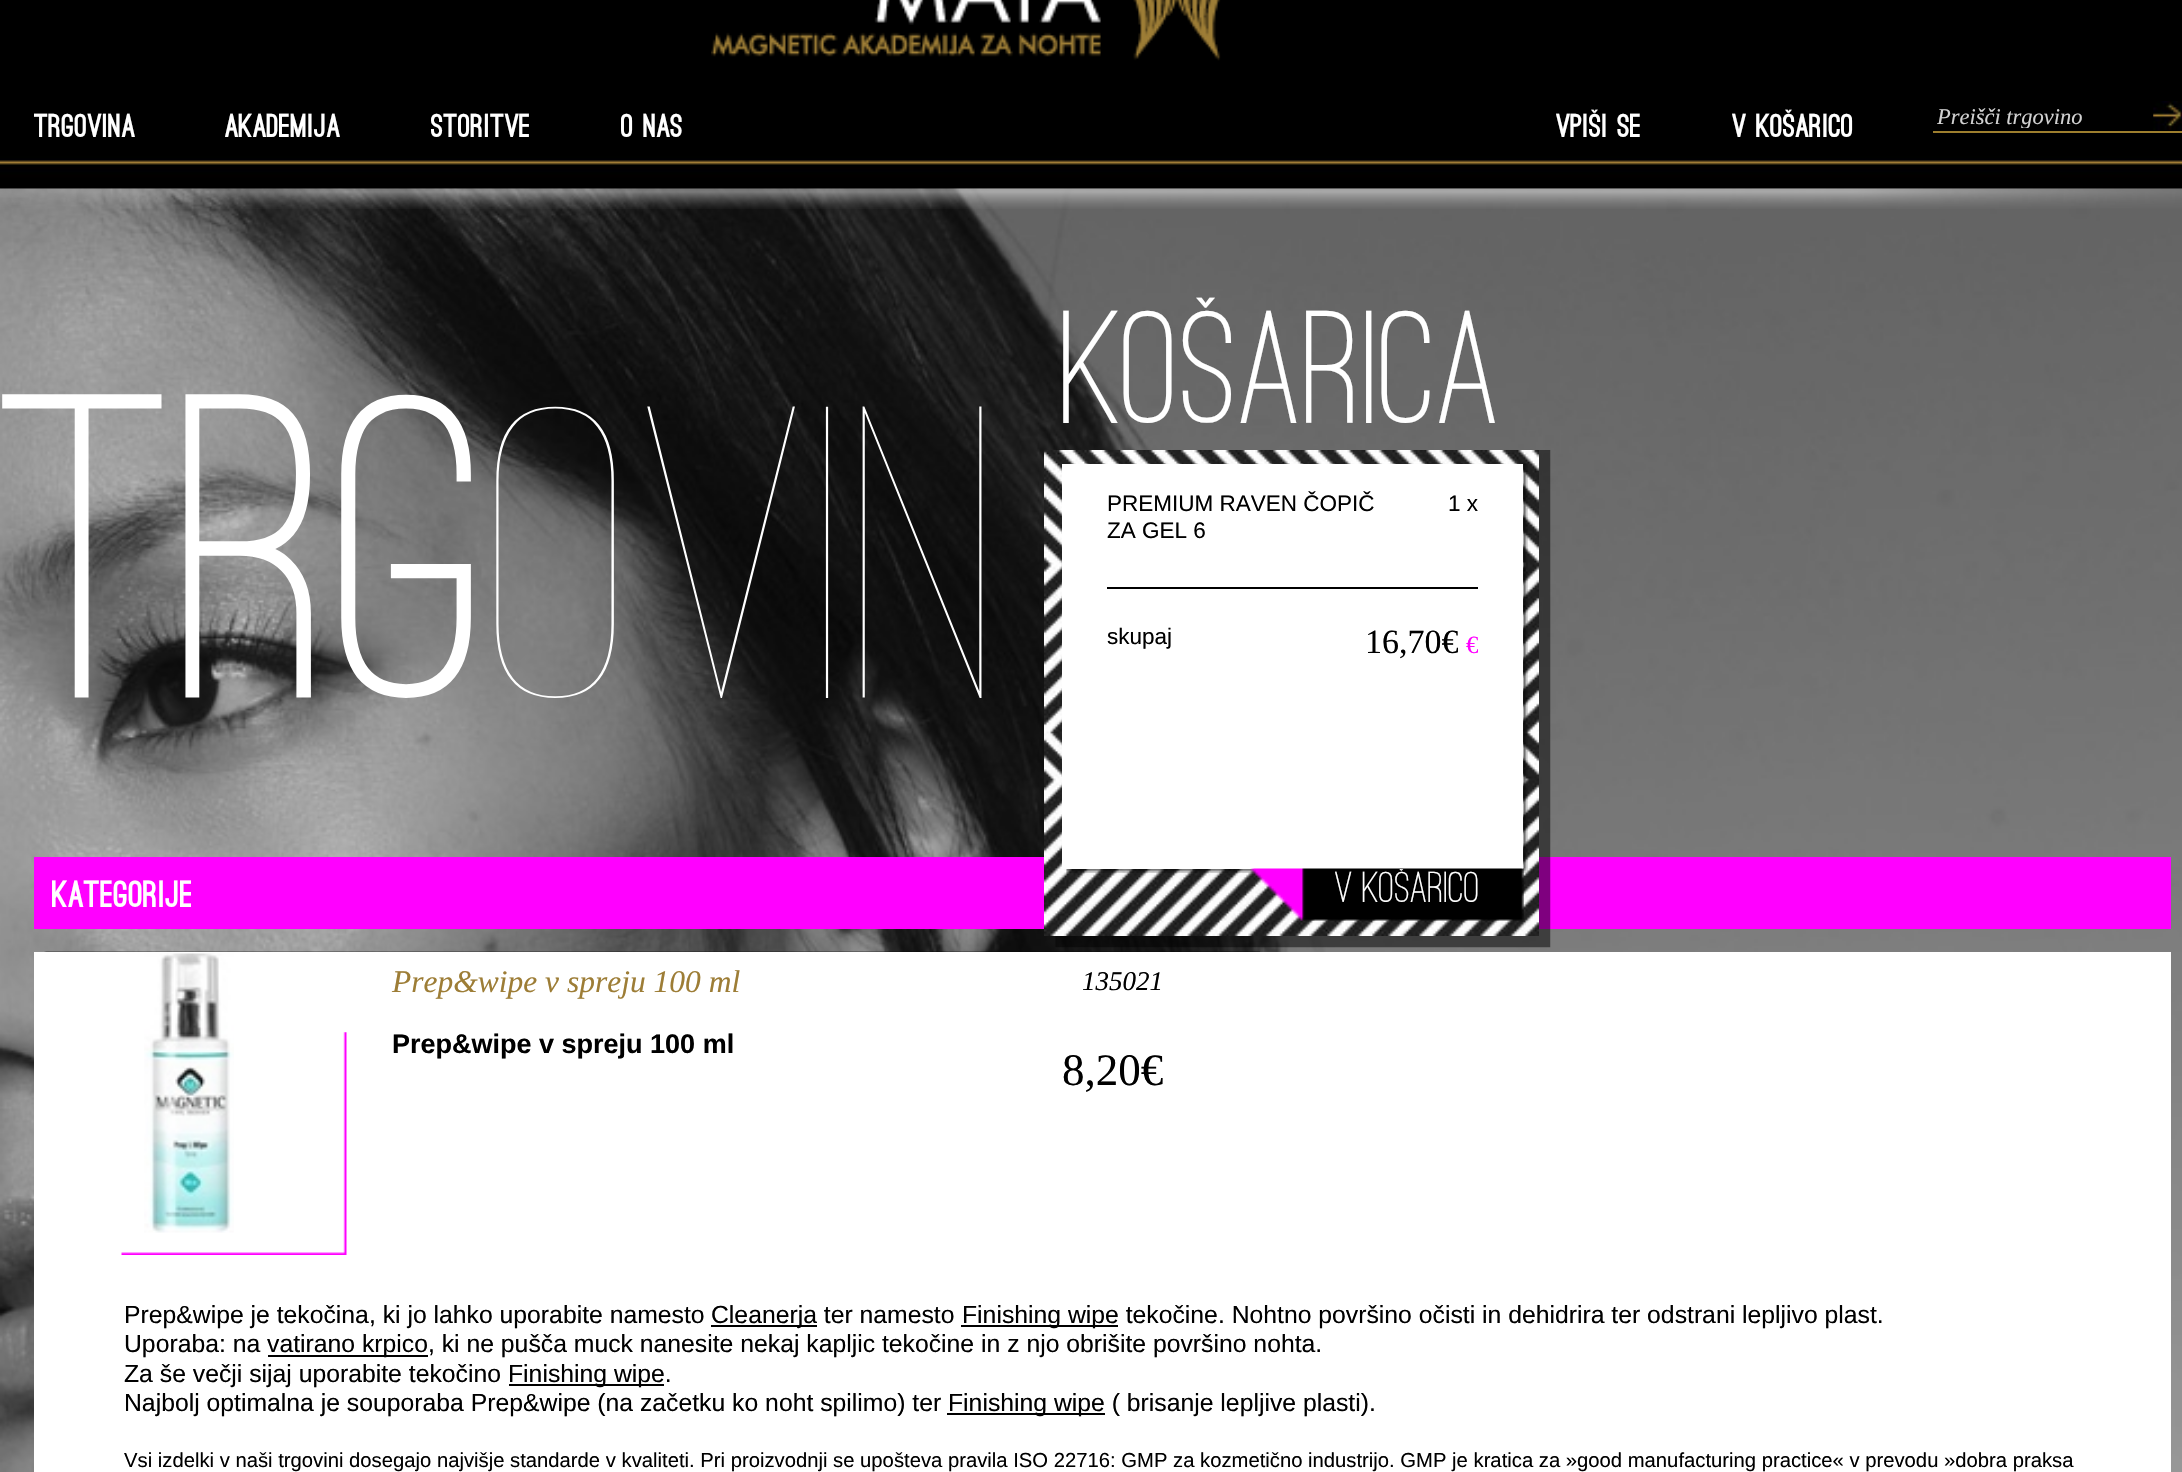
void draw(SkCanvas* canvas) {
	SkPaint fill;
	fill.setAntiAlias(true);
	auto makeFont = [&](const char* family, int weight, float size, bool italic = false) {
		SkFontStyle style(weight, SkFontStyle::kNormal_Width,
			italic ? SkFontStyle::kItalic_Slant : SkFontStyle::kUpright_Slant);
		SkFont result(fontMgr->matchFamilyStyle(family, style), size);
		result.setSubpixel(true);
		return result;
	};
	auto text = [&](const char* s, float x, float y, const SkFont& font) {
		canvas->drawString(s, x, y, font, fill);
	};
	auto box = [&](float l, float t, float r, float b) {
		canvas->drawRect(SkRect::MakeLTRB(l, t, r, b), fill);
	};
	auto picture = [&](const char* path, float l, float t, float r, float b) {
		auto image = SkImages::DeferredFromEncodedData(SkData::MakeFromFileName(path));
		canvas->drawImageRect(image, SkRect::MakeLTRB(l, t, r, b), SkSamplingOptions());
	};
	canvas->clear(0xFFFFFFFF);
	picture("image0.png", 0, 188, 2182, 1472);
	picture("image1.png", 0, 0, 2182, 189);
	picture("image2.png", 711, 0, 1221, 61);
	fill.setColor(0xFF9D7E2E);
	box(1933, 131, 2182, 133);
	picture("image3.png", 2153, 101, 2182, 130);
	picture("image4.png", 0, 188, 2182, 209);
	fill.setColor(0xFFFF00FF);
	box(34, 857, 2171, 929);
	picture("image5.png", 1054, 450, 1551, 948);
	picture("image6.png", 1044, 450, 1539, 936);
	picture("image7.png", 1066, 463, 1528, 873);
	fill.setColor(0xFFFFFFFF);
	box(1062, 464, 1523, 869);
	fill.setColor(0xFF000000);
	box(1107, 587, 1478, 589);
	picture("image8.png", 1250, 868, 1524, 921);
	picture("image9.png", 44, 951, 1260, 952);
	fill.setColor(0xFFFFFFFF);
	box(34, 952, 2171, 1472);
	picture("image10.png", 121, 1032, 347, 1255);
	picture("image11.png", 144, 953, 234, 1233);
	fill.setColor(0xFF000000);
	box(711, 1325, 817, 1327);
	box(961, 1325, 1118, 1327);
	box(268, 1355, 428, 1357);
	box(509, 1384, 664, 1386);
	box(947, 1413, 1105, 1415);
	auto font1 = makeFont("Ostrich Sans", 900, 31.5f);
	fill.setColor(0xFFFFFFFF);
	text("TRGOVINA", 34, 137, font1);
	text("AKADEMIJA", 225, 137, font1);
	text("STORITVE", 431, 137, font1);
	text("O nas", 621, 137, font1);
	text("VPIŠI SE", 1556, 137, font1);
	text("V KOŠARICO", 1732, 137, font1);
	canvas->save();
	canvas->clipRect(SkRect::MakeLTRB(1937, 104, 2149, 128));
	auto font2 = makeFont("Liberation Serif", 400, 22.5f, true);
	fill.setColor(0xFFD1D1D1);
	text("Preišči trgovino", 1937, 124, font2);
	canvas->restore();
	auto font3 = makeFont("Ostrich Sans", 900, 36);
	fill.setColor(0xFFFFFFFF);
	text("Kategorije", 52, 907, font3);
	auto font4 = makeFont("Ostrich Sans", 500, 166.5f);
	text("KOŠARICA", 1062, 423, font4);
	auto font5 = makeFont("Liberation Sans", 400, 22.5f);
	fill.setColor(0xFF000000);
	text("PREMIUM RAVEN ČOPIČ", 1107, 511, font5);
	text("ZA GEL 6", 1107, 538, font5);
	text("1 x", 1448, 511, font5);
	text("skupaj", 1107, 644, font5);
	auto font6 = makeFont("Liberation Serif", 400, 34);
	text("16,70€", 1365, 653, font6);
	auto font7 = makeFont("Liberation Serif", 400, 24.75f);
	fill.setColor(0xFFFF00FF);
	text("€", 1466, 653, font7);
	canvas->save();
	canvas->clipRect(SkRect::MakeLTRB(1067, 869, 1523, 920));
	auto font8 = makeFont("Ostrich Sans", 500, 45);
	fill.setColor(0xFFFFFFFF);
	text("V KOŠARICO", 1335, 902, font8);
	canvas->restore();
	auto font9 = makeFont("Liberation Serif", 400, 31.5f, true);
	fill.setColor(0xFF9D7D36);
	text("Prep&wipe v spreju 100 ml", 392, 992, font9);
	auto font10 = makeFont("Liberation Serif", 400, 27, true);
	fill.setColor(0xFF000000);
	text("135021", 1082, 990, font10);
	auto font11 = makeFont("Liberation Sans", 700, 27);
	text("Prep&wipe v spreju 100 ml", 392, 1053, font11);
	auto font12 = makeFont("Liberation Serif", 400, 45);
	text("8,20€", 1062, 1085, font12);
	auto font13 = makeFont("Liberation Sans", 400, 24.75f);
	text("Prep&wipe je tekočina, ki jo lahko uporabite namesto", 124, 1323, font13);
	text("Cleanerja ter namesto", 711, 1323, font13);
	text("Finishing wipe tekočine. Nohtno površino očisti in dehidrira ter odstrani lepljivo plast.", 962, 1323, font13);
	text("Uporaba: na", 124, 1352, font13);
	text("vatirano krpico, ki ne pušča muck nanesite nekaj kapljic tekočine in z njo obrišite površino nohta.", 267, 1352, font13);
	text("Za še večji sijaj uporabite tekočino", 124, 1382, font13);
	text("Finishing wipe.", 508, 1382, font13);
	text("Najbolj optimalna je souporaba Prep&wipe (na začetku ko noht spilimo) ter", 124, 1411, font13);
	text("Finishing wipe ( brisanje lepljive plasti).", 948, 1411, font13);
	auto font14 = makeFont("Liberation Sans", 400, 20.25f);
	text("Vsi izdelki v naši trgovini dosegajo najvišje standarde v kvaliteti. Pri proizvodnji se upošteva pravila ISO 22716: GMP za kozmetično industrijo. GMP je kratica za »good manufacturing practice« v prevodu »dobra praksa", 124, 1467, font14);
	auto font15 = makeFont("Ostrich Sans", 500, 450);
	fill.setColor(0xFFFFFFFF);
	text("trg", 0, 698, font15);
	auto font16 = makeFont("Ostrich Sans", 300, 450);
	text("ovin", 495, 698, font16);
}
